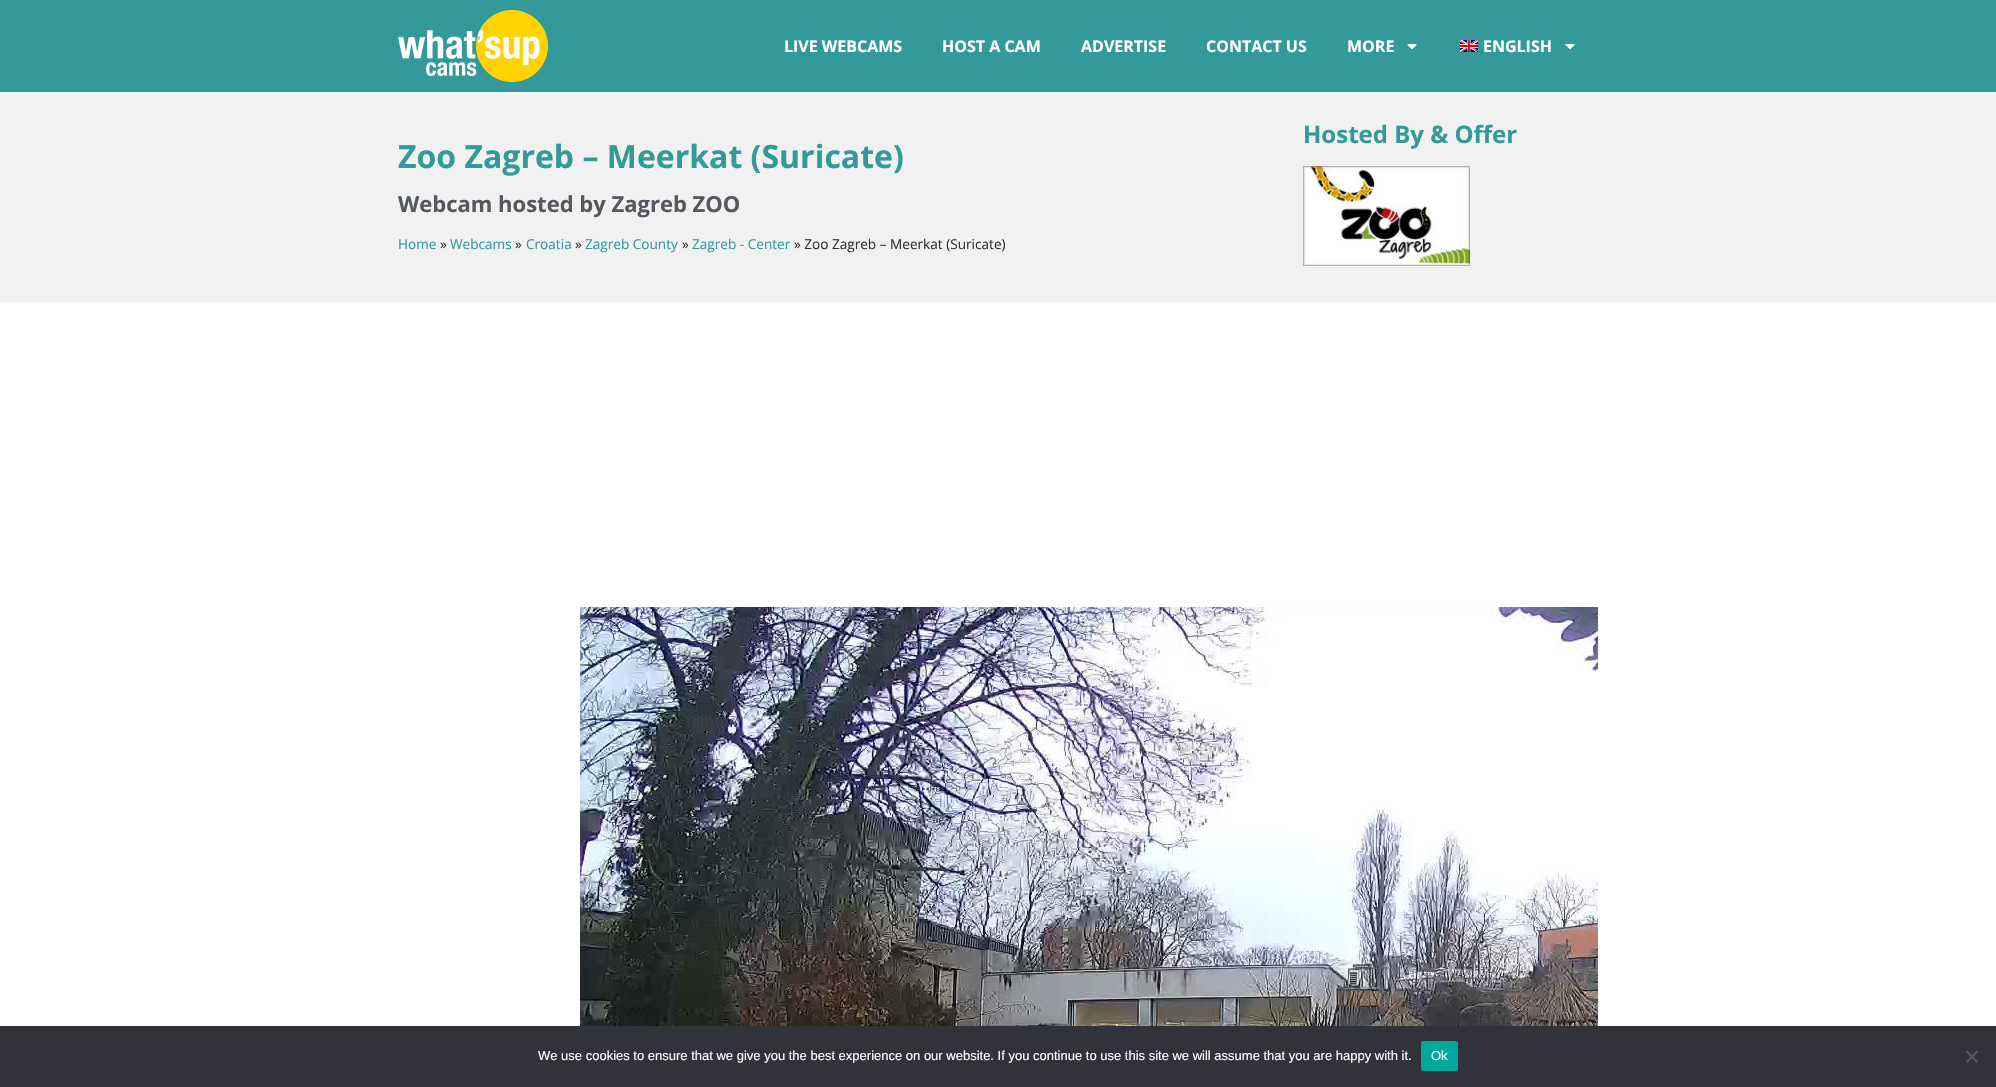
void draw(SkCanvas* canvas) {
	SkPaint fill;
	fill.setAntiAlias(true);
	auto makeFont = [&](const char* family, int weight, float size, bool italic = false) {
		SkFontStyle style(weight, SkFontStyle::kNormal_Width,
			italic ? SkFontStyle::kItalic_Slant : SkFontStyle::kUpright_Slant);
		SkFont result(fontMgr->matchFamilyStyle(family, style), size);
		result.setSubpixel(true);
		return result;
	};
	auto text = [&](const char* s, float x, float y, const SkFont& font) {
		canvas->drawString(s, x, y, font, fill);
	};
	auto box = [&](float l, float t, float r, float b) {
		canvas->drawRect(SkRect::MakeLTRB(l, t, r, b), fill);
	};
	auto roundBox = [&](float l, float t, float r, float b, float radius) {
		canvas->drawRoundRect(SkRect::MakeLTRB(l, t, r, b), radius, radius, fill);
	};
	auto picture = [&](const char* path, float l, float t, float r, float b) {
		auto image = SkImages::DeferredFromEncodedData(SkData::MakeFromFileName(path));
		canvas->drawImageRect(image, SkRect::MakeLTRB(l, t, r, b), SkSamplingOptions());
	};
	canvas->clear(0xFFFFFFFF);
	fill.setColor(0xFF339999);
	box(0, 0, 1996, 92);
	picture("image0.png", 398, 10, 548, 82);
	picture("image1.png", 1407, 44, 1417, 50);
	picture("image2.png", 1460, 40, 1478, 52);
	picture("image1.png", 1565, 44, 1575, 50);
	fill.setColor(0xFFF1F1F1);
	box(0, 92, 1996, 302);
	picture("image3.png", 1303, 166, 1470, 266);
	picture("image4.png", 580, 607, 1598, 1026);
	fill.setColor(0xFF32323A);
	box(0, 1026, 1996, 1087);
	fill.setColor(0xFF00A99D);
	roundBox(1421, 1041, 1458, 1071, 3);
	fill.setColor(0xFF59595D);
	canvas->drawPath(SkPathBuilder().moveTo(1976.5f, 1050.5f).lineTo(1978, 1052).lineTo(1967.5f, 1063).lineTo(1966, 1061.5f).close().detach(), fill);
	canvas->drawPath(SkPathBuilder().moveTo(1966, 1052).lineTo(1967.5f, 1050.5f).lineTo(1978, 1061.5f).lineTo(1976.5f, 1063).close().detach(), fill);
	auto font1 = makeFont("Open Sans", 700, 16);
	fill.setColor(0xFFFFFFFF);
	text("LIVE WEBCAMS", 784, 52, font1);
	text("HOST A CAM", 942, 52, font1);
	text("ADVERTISE", 1081, 52, font1);
	text("CONTACT US", 1206, 52, font1);
	text("MORE", 1347, 52, font1);
	text("ENGLISH", 1483, 52, font1);
	auto font2 = makeFont("Open Sans", 700, 24);
	fill.setColor(0xFF339999);
	text("Hosted By & Offer", 1303, 143, font2);
	auto font3 = makeFont("Open Sans", 700, 32);
	text("Zoo Zagreb – Meerkat (Suricate)", 398, 168, font3);
	auto font4 = makeFont("Open Sans", 700, 22);
	fill.setColor(0xFF54595F);
	text("Webcam hosted by Zagreb ZOO", 398, 212, font4);
	auto font5 = makeFont("Open Sans", 400, 13.6f);
	fill.setColor(0xFF339999);
	text("Home", 398, 249, font5);
	fill.setColor(0xFF333333);
	text("»", 440, 249, font5);
	fill.setColor(0xFF339999);
	text("Webcams", 450, 249, font5);
	fill.setColor(0xFF333333);
	text("»", 515, 249, font5);
	fill.setColor(0xFF339999);
	text("Croatia", 526, 249, font5);
	fill.setColor(0xFF333333);
	text("»", 575, 249, font5);
	fill.setColor(0xFF339999);
	text("Zagreb County", 585, 249, font5);
	fill.setColor(0xFF333333);
	text("»", 682, 249, font5);
	fill.setColor(0xFF339999);
	text("Zagreb - Center", 692, 249, font5);
	fill.setColor(0xFF333333);
	text("» Zoo Zagreb – Meerkat (Suricate)", 794, 249, font5);
	auto font6 = makeFont("Liberation Sans", 400, 13);
	fill.setColor(0xFFFFFFFF);
	text("We use cookies to ensure that we give you the best experience on our website. If you continue to use this site we will assume that you are happy with it.", 538, 1060, font6);
	text("Ok", 1431, 1060, font6);
}
